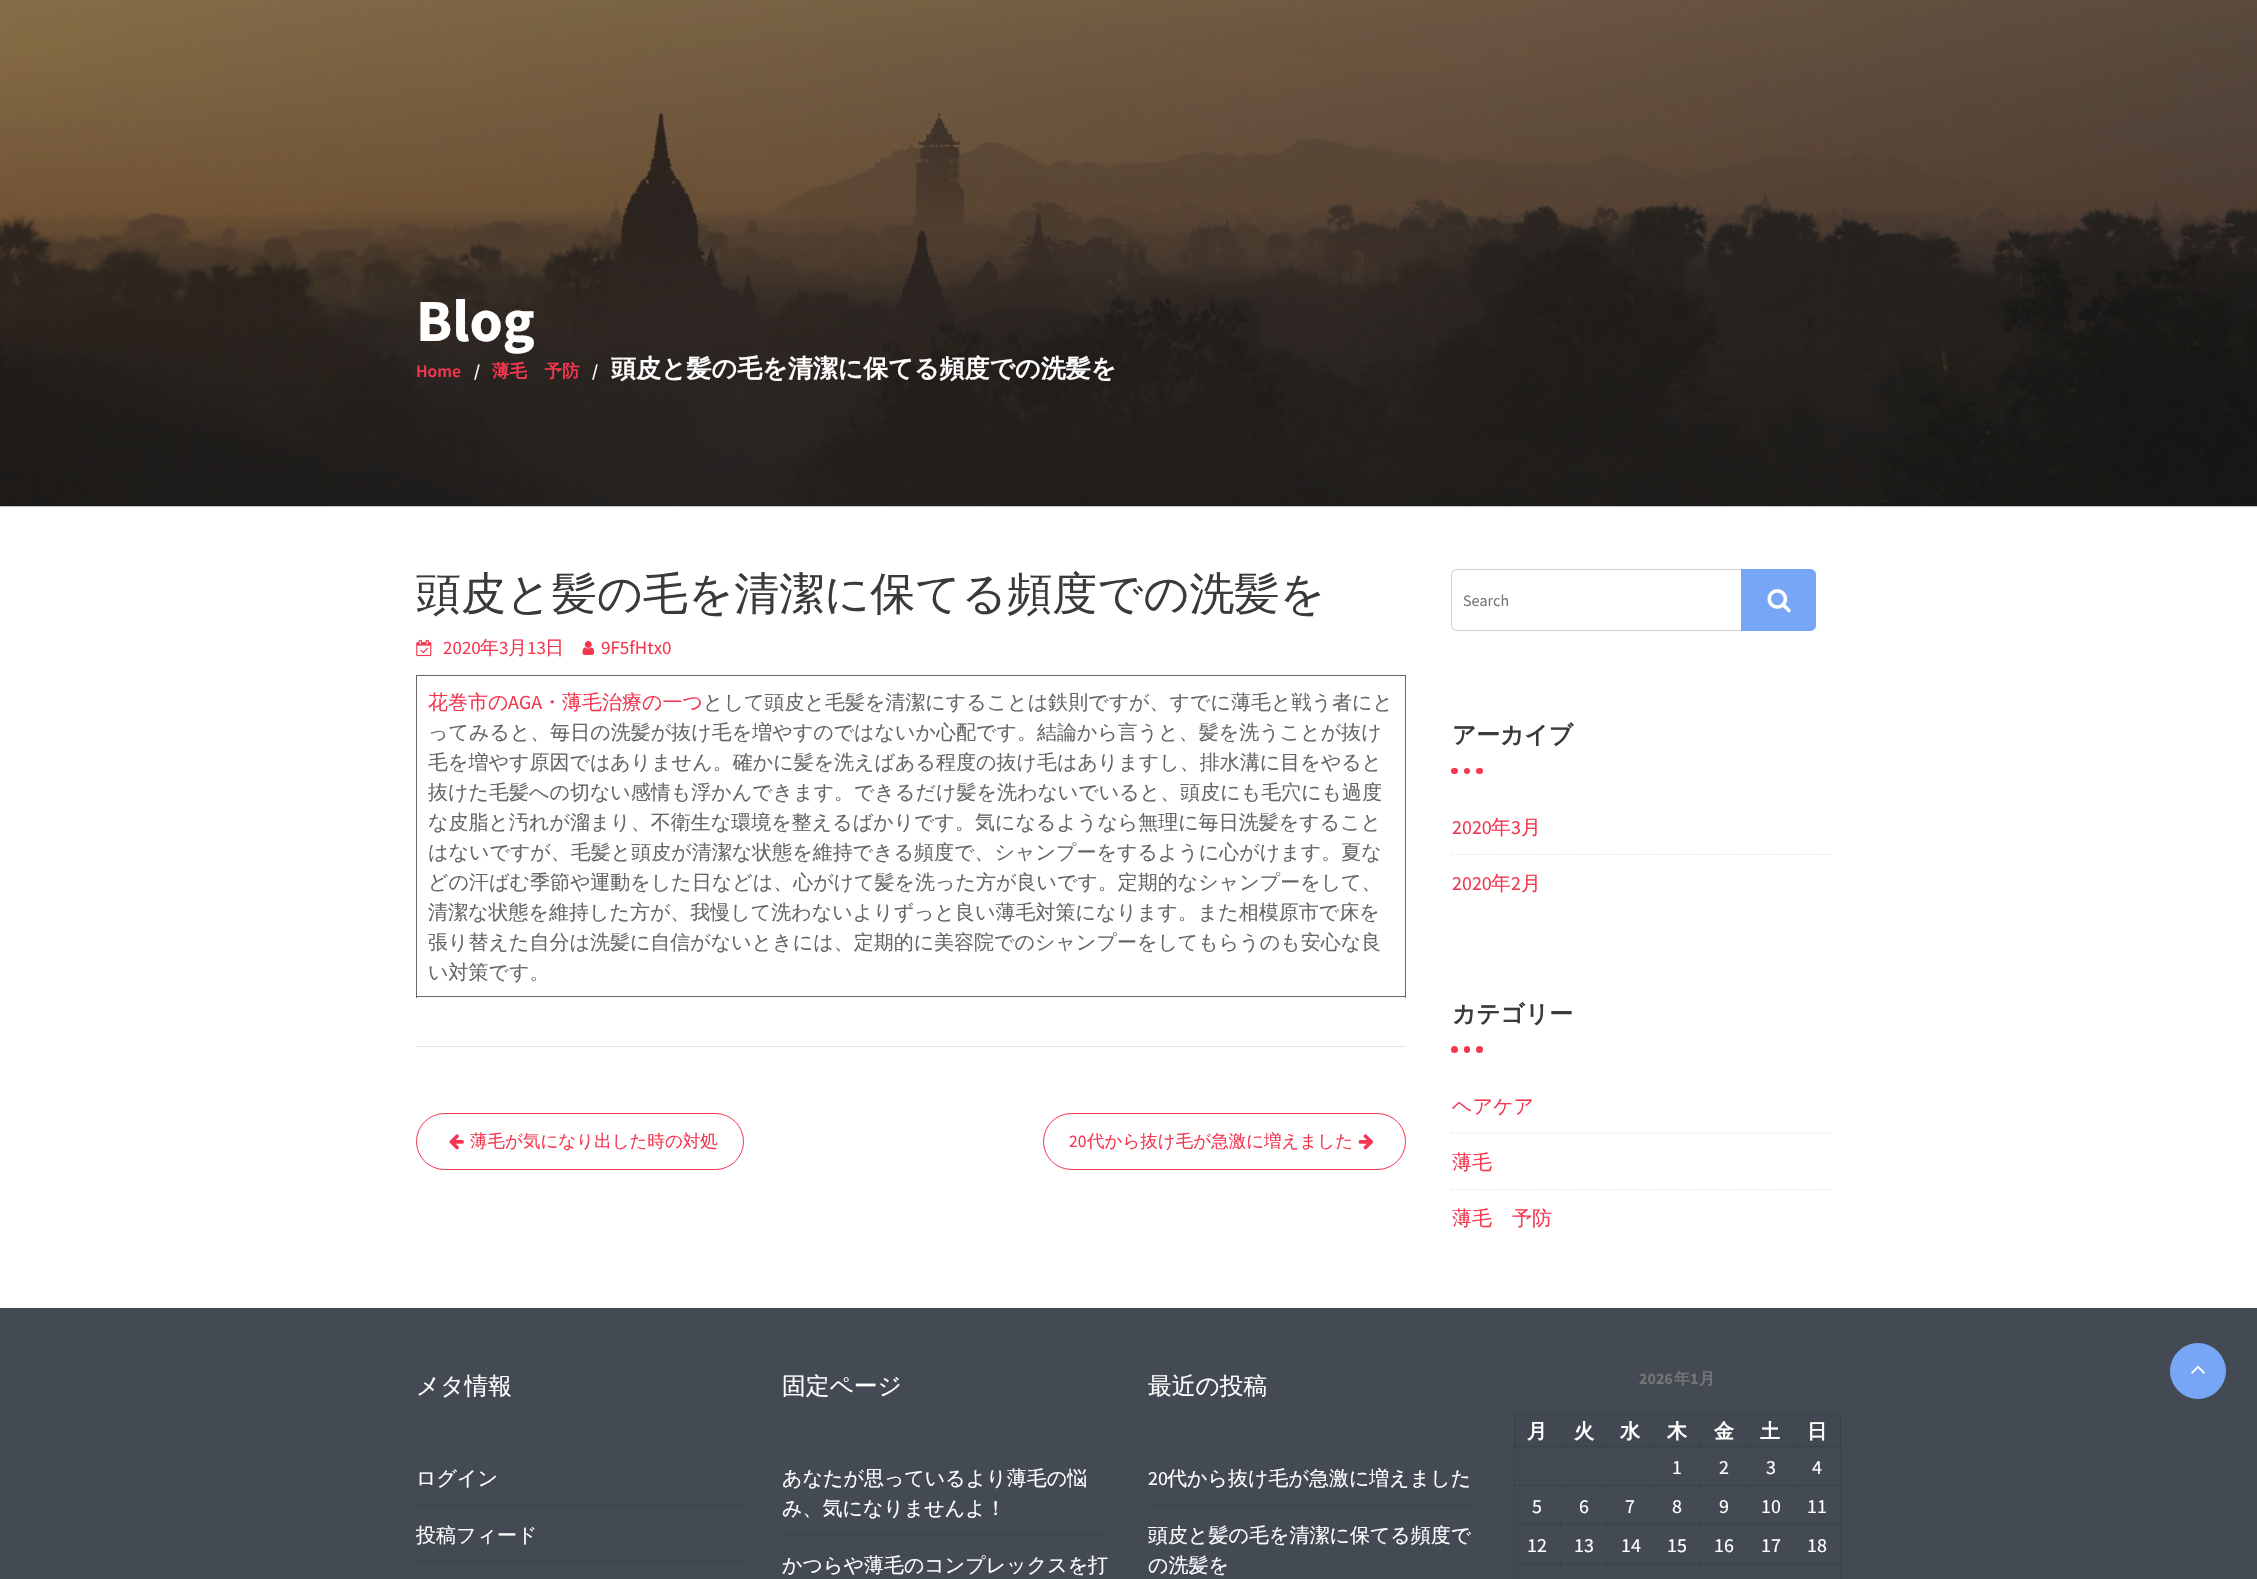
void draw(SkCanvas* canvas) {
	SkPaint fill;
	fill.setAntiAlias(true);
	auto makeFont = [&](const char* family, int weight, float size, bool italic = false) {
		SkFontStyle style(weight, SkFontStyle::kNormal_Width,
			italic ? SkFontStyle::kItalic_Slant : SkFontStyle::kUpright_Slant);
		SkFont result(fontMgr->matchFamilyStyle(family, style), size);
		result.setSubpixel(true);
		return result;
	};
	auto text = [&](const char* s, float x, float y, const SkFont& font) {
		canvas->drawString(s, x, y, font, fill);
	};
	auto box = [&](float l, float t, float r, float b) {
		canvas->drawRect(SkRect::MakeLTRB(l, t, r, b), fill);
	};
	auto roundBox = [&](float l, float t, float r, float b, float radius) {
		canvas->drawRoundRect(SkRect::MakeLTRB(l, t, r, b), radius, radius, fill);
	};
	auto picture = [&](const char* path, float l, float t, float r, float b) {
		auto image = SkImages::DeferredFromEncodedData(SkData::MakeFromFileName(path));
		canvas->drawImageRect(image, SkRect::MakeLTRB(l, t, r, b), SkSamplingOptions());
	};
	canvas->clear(0xFFFFFFFF);
	picture("image0.png", 0, 0, 2257, 507);
	fill.setColor(0xFFE6E6E6);
	box(416, 1046, 1406, 1047);
	picture("image1.png", 416, 639, 432, 657);
	picture("image2.png", 582, 641, 595, 655);
	fill.setColor(0xFF666666);
	box(416, 675, 1406, 676);
	box(1405, 675, 1406, 998);
	box(416, 996, 1406, 997);
	box(416, 675, 417, 998);
	fill.setStyle(SkPaint::kStroke_Style);
	fill.setStrokeWidth(1);
	fill.setColor(0xFFF4364F);
	canvas->drawRoundRect(SkRect::MakeLTRB(416.5f, 1113.5f, 743.5f, 1169.5f), 28, 28, fill);
	picture("image3.png", 449, 1134, 464, 1150);
	canvas->drawRoundRect(SkRect::MakeLTRB(1043.5f, 1113.5f, 1405.5f, 1169.5f), 28, 28, fill);
	picture("image4.png", 1358, 1134, 1374, 1150);
	fill.setColor(0xFFCECECE);
	canvas->drawRoundRect(SkRect::MakeLTRB(1451.5f, 569.5f, 1815.5f, 630.5f), 5.5f, 5.5f, fill);
	fill.setStyle(SkPaint::kFill_Style);
	fill.setColor(0xFF77A6F7);
	canvas->drawPath(SkPathBuilder().moveTo(1741, 569).lineTo(1810, 569).cubicTo(1813.5f, 569, 1816, 571.5f, 1816, 575).lineTo(1816, 625).cubicTo(1816, 628.5f, 1813.5f, 631, 1810, 631).lineTo(1741, 631).close().detach(), fill);
	picture("image5.png", 1767, 589, 1791, 613);
	fill.setColor(0xFFF4364F);
	roundBox(1451, 768, 1458, 774, 3);
	roundBox(1476, 768, 1483, 774, 3);
	canvas->drawCircle(1467, 771, 3, fill);
	fill.setStyle(SkPaint::kStroke_Style);
	fill.setStrokeWidth(1.2f);
	fill.setColor(0xFFDFDFDF);
	fill.setPathEffect(SkDashPathEffect::Make({{1.25f, 1.25f}}, 0));
	canvas->drawPath(SkPathBuilder().moveTo(1451, 854.5f).lineTo(1832.5f, 854.5f).detach(), fill);
	fill.setPathEffect(nullptr);
	fill.setStyle(SkPaint::kFill_Style);
	fill.setColor(0xFFF4364F);
	canvas->drawCircle(1454.5f, 1049.5f, 3.5f, fill);
	canvas->drawCircle(1479.5f, 1049.5f, 3.5f, fill);
	roundBox(1464, 1046, 1470, 1053, 3);
	fill.setStyle(SkPaint::kStroke_Style);
	fill.setColor(0xFFDFDFDF);
	fill.setPathEffect(SkDashPathEffect::Make({{1.25f, 1.25f}}, 0));
	canvas->drawPath(SkPathBuilder().moveTo(1451, 1133).lineTo(1832.5f, 1133).detach(), fill);
	fill.setPathEffect(nullptr);
	fill.setPathEffect(SkDashPathEffect::Make({{1.25f, 1.25f}}, 0));
	canvas->drawPath(SkPathBuilder().moveTo(1451, 1189.5f).lineTo(1832.5f, 1189.5f).detach(), fill);
	fill.setPathEffect(nullptr);
	fill.setStyle(SkPaint::kFill_Style);
	fill.setColor(0xFF434A54);
	box(0, 1308, 2257, 1579);
	fill.setColor(0xFF3F464F);
	box(1654, 1446, 1655, 1579);
	box(1700, 1446, 1701, 1579);
	box(1746, 1446, 1747, 1579);
	box(1794, 1446, 1795, 1579);
	box(1560, 1485, 1561, 1579);
	box(1606, 1485, 1607, 1579);
	box(1514, 1413, 1841, 1414);
	fill.setColor(0xFF394049);
	box(1560, 1413, 1561, 1414);
	box(1606, 1413, 1607, 1414);
	box(1654, 1413, 1655, 1414);
	box(1700, 1413, 1701, 1414);
	box(1746, 1413, 1747, 1414);
	box(1794, 1413, 1795, 1414);
	fill.setColor(0xFF3B424B);
	box(1514, 1485, 1841, 1486);
	fill.setColor(0xFF353C45);
	box(1560, 1485, 1561, 1486);
	box(1606, 1485, 1607, 1486);
	fill.setColor(0xFF30363F);
	box(1654, 1485, 1655, 1486);
	box(1700, 1485, 1701, 1486);
	fill.setColor(0xFF373E47);
	box(1746, 1485, 1748, 1486);
	fill.setColor(0xFF30363F);
	box(1746, 1485, 1747, 1486);
	box(1794, 1485, 1795, 1486);
	fill.setColor(0xFF414851);
	box(1514, 1345, 1515, 1413);
	fill.setColor(0xFF394049);
	box(1514, 1413, 1515, 1414);
	fill.setColor(0xFF3D444D);
	box(1514, 1446, 1515, 1486);
	fill.setColor(0xFF414851);
	box(1840, 1345, 1841, 1413);
	fill.setColor(0xFF394049);
	box(1840, 1413, 1841, 1414);
	fill.setColor(0xFF3D444D);
	box(1840, 1446, 1841, 1525);
	fill.setColor(0xFF3E444D);
	box(416, 1505, 745, 1506);
	box(416, 1561, 745, 1562);
	box(783, 1535, 1110, 1536);
	box(1148, 1505, 1476, 1506);
	fill.setColor(0xFF414851);
	box(1514, 1345, 1841, 1346);
	box(1515, 1414, 1560, 1448);
	fill.setColor(0xFF3B424B);
	box(1514, 1414, 1515, 1448);
	fill.setColor(0xFF373E47);
	box(1514, 1446, 1515, 1448);
	fill.setColor(0xFF414851);
	box(1561, 1414, 1654, 1448);
	fill.setColor(0xFF3D444D);
	box(1560, 1414, 1561, 1448);
	box(1606, 1414, 1607, 1448);
	fill.setColor(0xFF414851);
	box(1655, 1414, 1700, 1448);
	fill.setColor(0xFF3D444D);
	box(1654, 1414, 1655, 1448);
	fill.setColor(0xFF394049);
	box(1654, 1446, 1655, 1448);
	fill.setColor(0xFF414851);
	box(1701, 1414, 1794, 1448);
	fill.setColor(0xFF3D444D);
	box(1700, 1414, 1701, 1448);
	box(1746, 1414, 1747, 1448);
	fill.setColor(0xFF394049);
	box(1700, 1446, 1701, 1448);
	box(1746, 1446, 1747, 1448);
	fill.setColor(0xFF414851);
	box(1795, 1414, 1840, 1448);
	fill.setColor(0xFF3D444D);
	box(1794, 1414, 1795, 1448);
	fill.setColor(0xFF394049);
	box(1794, 1446, 1795, 1448);
	fill.setColor(0xFF3B424B);
	box(1840, 1414, 1841, 1448);
	fill.setColor(0xFF373E47);
	box(1840, 1446, 1841, 1448);
	fill.setColor(0xFF394049);
	box(1514, 1446, 1841, 1447);
	fill.setColor(0xFF333A43);
	box(1560, 1446, 1561, 1447);
	box(1606, 1446, 1607, 1447);
	fill.setColor(0xFF2F343D);
	box(1654, 1446, 1655, 1447);
	box(1700, 1446, 1701, 1447);
	fill.setColor(0xFF353C45);
	box(1746, 1446, 1748, 1447);
	fill.setColor(0xFF2F343D);
	box(1746, 1446, 1747, 1447);
	box(1794, 1446, 1795, 1447);
	fill.setColor(0xFF313841);
	box(1514, 1446, 1515, 1447);
	box(1840, 1446, 1841, 1447);
	fill.setColor(0xFF333A43);
	box(1840, 1485, 1841, 1486);
	fill.setColor(0xFF3B424B);
	box(1514, 1563, 1841, 1564);
	fill.setColor(0xFF3D444D);
	box(1514, 1524, 1515, 1564);
	fill.setColor(0xFF3B424B);
	box(1514, 1524, 1841, 1525);
	fill.setColor(0xFF30363F);
	box(1560, 1524, 1561, 1525);
	fill.setColor(0xFF373E47);
	box(1606, 1524, 1608, 1525);
	fill.setColor(0xFF30363F);
	box(1606, 1524, 1607, 1525);
	box(1654, 1524, 1655, 1525);
	box(1700, 1524, 1701, 1525);
	fill.setColor(0xFF373E47);
	box(1746, 1524, 1748, 1525);
	fill.setColor(0xFF30363F);
	box(1746, 1524, 1747, 1525);
	fill.setColor(0xFF3D444D);
	box(1514, 1485, 1515, 1525);
	fill.setColor(0xFF373E47);
	box(1514, 1524, 1515, 1525);
	fill.setColor(0xFF333A43);
	box(1514, 1485, 1515, 1486);
	fill.setColor(0xFF3D444C);
	box(1514, 1563, 1515, 1579);
	fill.setColor(0xFF394048);
	box(1514, 1563, 1515, 1564);
	fill.setColor(0xFF30363F);
	box(1794, 1563, 1795, 1564);
	fill.setColor(0xFF3D444D);
	box(1840, 1524, 1841, 1579);
	fill.setColor(0xFF30363F);
	box(1560, 1563, 1561, 1564);
	fill.setColor(0xFF373E47);
	box(1606, 1563, 1608, 1564);
	fill.setColor(0xFF30363F);
	box(1606, 1563, 1607, 1564);
	box(1654, 1563, 1655, 1564);
	box(1700, 1563, 1701, 1564);
	fill.setColor(0xFF373E47);
	box(1746, 1563, 1748, 1564);
	fill.setColor(0xFF30363F);
	box(1746, 1563, 1747, 1564);
	box(1794, 1524, 1795, 1525);
	fill.setColor(0xFF394049);
	box(1840, 1524, 1841, 1525);
	fill.setColor(0xFF77A6F7);
	canvas->drawCircle(2198, 1371, 27.5f, fill);
	fill.setStyle(SkPaint::kStroke_Style);
	fill.setStrokeWidth(1);
	canvas->drawCircle(2198, 1371, 27.5f, fill);
	picture("image6.png", 2191, 1365, 2205, 1374);
	auto font1 = makeFont("Source Sans Pro", 700, 60);
	fill.setStyle(SkPaint::kFill_Style);
	fill.setColor(0xFFFFFFFF);
	text("Blog", 416, 341, font1);
	auto font2 = makeFont("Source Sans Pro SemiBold", 600, 17.5f);
	fill.setColor(0xFFF4364F);
	text("Home", 416, 377, font2);
	fill.setColor(0xFFFFFFFF);
	text("/", 474, 377, font2);
	auto font3 = makeFont("WenQuanYi Zen Hei", 700, 17.5f);
	fill.setColor(0xFFF4364F);
	text("薄毛　予防", 492, 377, font3);
	fill.setColor(0xFFFFFFFF);
	text("/", 592, 377, font2);
	auto font4 = makeFont("WenQuanYi Zen Hei", 700, 25);
	text("頭皮と髪の毛を清潔に保てる頻度での洗髪を", 611, 377, font4);
	auto font5 = makeFont("WenQuanYi Zen Hei", 500, 45);
	fill.setColor(0xFF3A3A3A);
	text("頭皮と髪の毛を清潔に保てる頻度での洗髪を", 416, 609, font5);
	auto font6 = makeFont("Source Sans Pro", 400, 19);
	fill.setColor(0xFFF4364F);
	text("2020", 443, 654, font6);
	auto font7 = makeFont("WenQuanYi Zen Hei", 500, 19);
	text("年", 480, 654, font7);
	text("3", 499, 654, font6);
	text("月", 508, 654, font7);
	text("13", 527, 654, font6);
	text("日", 545, 654, font7);
	text("9F5fHtx0", 601, 654, font6);
	auto font8 = makeFont("WenQuanYi Zen Hei", 500, 20);
	text("花巻市の", 428, 709, font8);
	auto font9 = makeFont("Source Sans Pro", 400, 20);
	text("AGA", 508, 709, font9);
	text("・薄毛治療の一つ", 542, 709, font8);
	fill.setColor(0xFF666666);
	text("として頭皮と毛髪を清潔にすることは鉄則ですが、すでに薄毛と戦う者にと", 703, 709, font8);
	text("ってみると、毎日の洗髪が抜け毛を増やすのではないか心配です。結論から言うと、髪を洗うことが抜け", 428, 739, font8);
	text("毛を増やす原因ではありません。確かに髪を洗えばある程度の抜け毛はありますし、排水溝に目をやると", 428, 769, font8);
	text("抜けた毛髪への切ない感情も浮かんできます。できるだけ髪を洗わないでいると、頭皮にも毛穴にも過度", 428, 799, font8);
	text("な皮脂と汚れが溜まり、不衛生な環境を整えるばかりです。気になるようなら無理に毎日洗髪をすること", 428, 829, font8);
	text("はないですが、毛髪と頭皮が清潔な状態を維持できる頻度で、シャンプーをするように心がけます。夏な", 428, 859, font8);
	text("どの汗ばむ季節や運動をした日などは、心がけて髪を洗った方が良いです。定期的なシャンプーをして、", 428, 889, font8);
	text("清潔な状態を維持した方が、我慢して洗わないよりずっと良い薄毛対策になります。また相模原市で床を", 428, 919, font8);
	text("張り替えた自分は洗髪に自信がないときには、定期的に美容院でのシャンプーをしてもらうのも安心な良", 428, 949, font8);
	text("い対策です。", 428, 979, font8);
	auto font10 = makeFont("WenQuanYi Zen Hei", 500, 17.5f);
	fill.setColor(0xFFF4364F);
	text("薄毛が気になり出した時の対処", 470, 1147, font10);
	auto font11 = makeFont("Source Sans Pro", 400, 17.5f);
	text("20", 1069, 1147, font11);
	text("代から抜け毛が急激に増えました", 1087, 1147, font10);
	auto font12 = makeFont("Source Sans Pro", 400, 16);
	fill.setColor(0xFF757575);
	text("Search", 1463, 606, font12);
	auto font13 = makeFont("WenQuanYi Zen Hei", 700, 23.75f);
	fill.setColor(0xFF3A3A3A);
	text("アーカイブ", 1452, 743, font13);
	fill.setColor(0xFFF4364F);
	text("2020", 1452, 834, font9);
	text("年", 1491, 834, font8);
	text("3", 1511, 834, font9);
	text("月", 1521, 834, font8);
	text("2020", 1452, 890, font9);
	text("年", 1491, 890, font8);
	text("2", 1511, 890, font9);
	text("月", 1521, 890, font8);
	fill.setColor(0xFF3A3A3A);
	text("カテゴリー", 1452, 1022, font13);
	fill.setColor(0xFFF4364F);
	text("ヘアケア", 1452, 1113, font8);
	text("薄毛", 1452, 1169, font8);
	text("薄毛　予防", 1452, 1225, font8);
	auto font14 = makeFont("WenQuanYi Zen Hei", 500, 23.75f);
	fill.setColor(0xFFFFFFFF);
	text("メタ情報", 416, 1394, font14);
	text("ログイン", 416, 1485, font8);
	text("投稿フィード", 416, 1542, font8);
	text("固定ページ", 782, 1394, font14);
	text("あなたが思っているより薄毛の悩", 782, 1485, font8);
	text("み、気になりませんよ！", 782, 1515, font8);
	text("かつらや薄毛のコンプレックスを打", 782, 1572, font8);
	text("最近の投稿", 1148, 1394, font14);
	text("20", 1148, 1485, font9);
	text("代から抜け毛が急激に増えました", 1167, 1485, font8);
	text("頭皮と髪の毛を清潔に保てる頻度で", 1148, 1542, font8);
	text("の洗髪を", 1148, 1572, font8);
	auto font15 = makeFont("Source Sans Pro", 700, 16);
	fill.setColor(0xFF757575);
	text("2026", 1639, 1384, font15);
	auto font16 = makeFont("WenQuanYi Zen Hei", 700, 16);
	text("年", 1674, 1384, font16);
	text("1", 1690, 1384, font15);
	text("月", 1699, 1384, font16);
	auto font17 = makeFont("WenQuanYi Zen Hei", 700, 20);
	fill.setColor(0xFFFFFFFF);
	text("月", 1527, 1438, font17);
	text("火", 1574, 1438, font17);
	text("水", 1620, 1438, font17);
	text("木", 1667, 1438, font17);
	text("金", 1714, 1438, font17);
	text("土", 1760, 1438, font17);
	text("日", 1807, 1438, font17);
	text("1", 1672, 1474, font9);
	text("2", 1719, 1474, font9);
	text("3", 1766, 1474, font9);
	text("4", 1812, 1474, font9);
	text("5", 1532, 1513, font9);
	text("6", 1579, 1513, font9);
	text("7", 1625, 1513, font9);
	text("8", 1672, 1513, font9);
	text("9", 1719, 1513, font9);
	text("10", 1761, 1513, font9);
	text("11", 1807, 1513, font9);
	text("12", 1527, 1552, font9);
	text("13", 1574, 1552, font9);
	text("14", 1621, 1552, font9);
	text("15", 1667, 1552, font9);
	text("16", 1714, 1552, font9);
	text("17", 1761, 1552, font9);
	text("18", 1807, 1552, font9);
}
